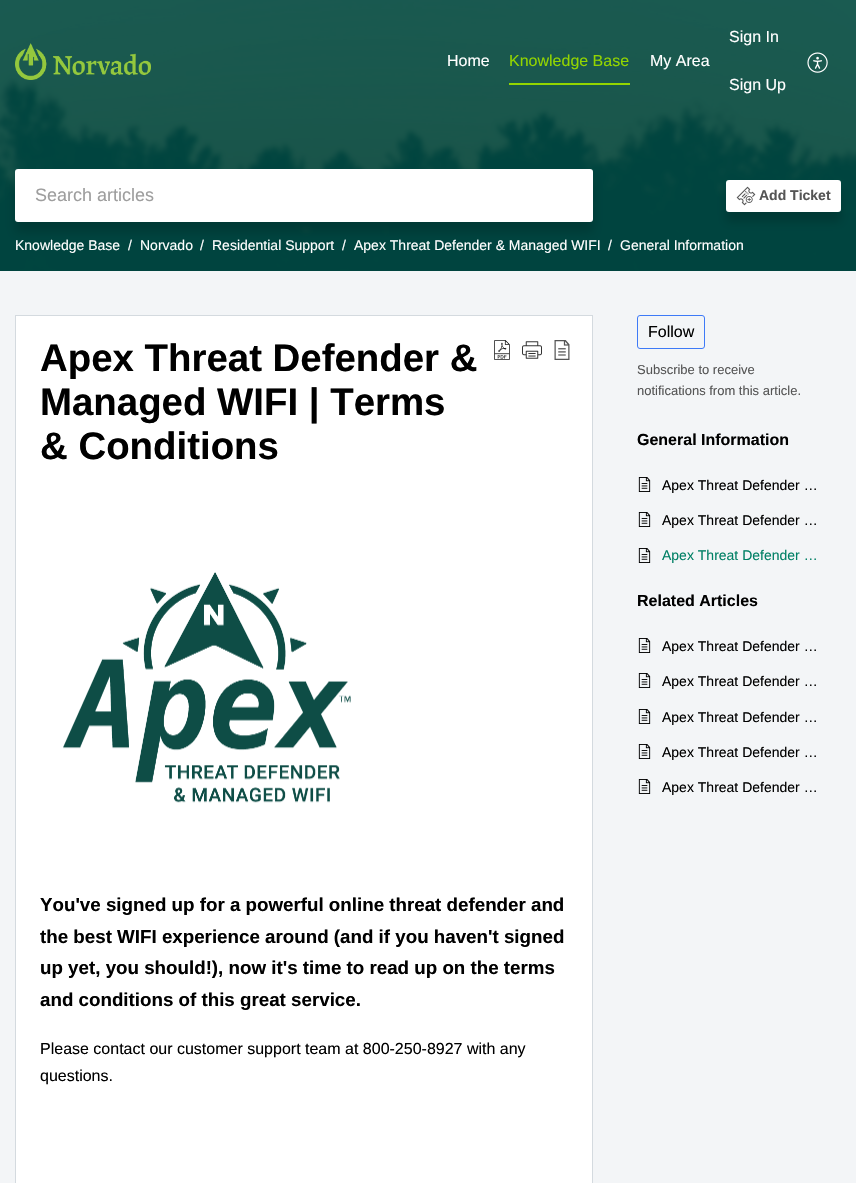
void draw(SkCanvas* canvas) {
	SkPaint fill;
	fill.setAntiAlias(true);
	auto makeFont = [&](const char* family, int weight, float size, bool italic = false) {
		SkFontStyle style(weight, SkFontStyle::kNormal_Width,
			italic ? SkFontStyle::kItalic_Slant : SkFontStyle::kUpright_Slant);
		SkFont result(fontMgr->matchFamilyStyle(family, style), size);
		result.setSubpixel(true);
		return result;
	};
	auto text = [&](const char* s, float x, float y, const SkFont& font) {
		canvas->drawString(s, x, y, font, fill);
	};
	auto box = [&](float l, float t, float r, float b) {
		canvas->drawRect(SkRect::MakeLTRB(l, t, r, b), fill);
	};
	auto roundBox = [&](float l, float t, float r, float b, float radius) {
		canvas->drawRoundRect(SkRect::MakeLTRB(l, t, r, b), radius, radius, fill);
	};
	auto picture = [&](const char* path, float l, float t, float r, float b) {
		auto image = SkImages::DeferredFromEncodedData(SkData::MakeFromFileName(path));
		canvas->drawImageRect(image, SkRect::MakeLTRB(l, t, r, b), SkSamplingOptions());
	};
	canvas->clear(0xFFF3F5F7);
	picture("image0.png", 0, 0, 856, 271);
	picture("image1.png", 15, 43, 151, 80);
	fill.setColor(0xFF93D500);
	box(509, 83, 630, 85);
	picture("image2.png", 807, 52, 828, 73);
	fill.setColor(0x29000000);
	fill.setMaskFilter(SkMaskFilter::MakeBlur(kNormal_SkBlurStyle, 5));
	canvas->drawRect(SkRect::MakeLTRB(15, 179, 593, 232), fill);
	fill.setMaskFilter(nullptr);
	fill.setColor(0xFFFFFFFF);
	roundBox(15, 169, 593, 222, 3);
	fill.setColor(0x29000000);
	fill.setMaskFilter(SkMaskFilter::MakeBlur(kNormal_SkBlurStyle, 5));
	canvas->drawRoundRect(SkRect::MakeLTRB(726, 190, 841, 222), 3, 3, fill);
	fill.setMaskFilter(nullptr);
	fill.setColor(0xFFFFFFFF);
	roundBox(726, 180, 841, 212, 3);
	picture("image3.png", 736, 186, 756, 206);
	canvas->drawRect(SkRect::MakeLTRB(15.5f, 315.5f, 592.5f, 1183.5f), fill);
	fill.setStyle(SkPaint::kStroke_Style);
	fill.setStrokeWidth(1);
	fill.setColor(0xFFD4DADF);
	canvas->drawRect(SkRect::MakeLTRB(15.5f, 315.5f, 592.5f, 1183.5f), fill);
	picture("image4.png", 494, 340, 510, 360);
	picture("image5.png", 522, 341, 542, 359);
	picture("image6.png", 554, 340, 570, 360);
	picture("image7.png", 63, 572, 351, 803);
	fill.setColor(0xFF3E7AF7);
	canvas->drawRoundRect(SkRect::MakeLTRB(637.5f, 315.5f, 704.5f, 348.5f), 2.5f, 2.5f, fill);
	picture("image8.png", 638, 477, 651, 492);
	picture("image8.png", 638, 512, 651, 527);
	picture("image8.png", 638, 548, 651, 563);
	picture("image8.png", 638, 638, 651, 653);
	picture("image8.png", 638, 673, 651, 688);
	picture("image8.png", 638, 709, 651, 724);
	picture("image8.png", 638, 744, 651, 759);
	picture("image8.png", 638, 779, 651, 794);
	auto font1 = makeFont("Liberation Sans", 400, 16);
	fill.setStyle(SkPaint::kFill_Style);
	fill.setColor(0xFFFFFFFF);
	text("Home", 447, 66, font1);
	fill.setColor(0xFF93D500);
	text("Knowledge Base", 509, 66, font1);
	fill.setColor(0xFFFFFFFF);
	text("My Area", 650, 66, font1);
	text("Sign In", 729, 42, font1);
	text("Sign Up", 729, 90, font1);
	auto font2 = makeFont("Liberation Sans", 400, 18);
	fill.setColor(0xFF9E9E9E);
	text("Search articles", 35, 201, font2);
	auto font3 = makeFont("Liberation Sans", 700, 14);
	fill.setColor(0xFF555555);
	text("Add Ticket", 759, 200, font3);
	auto font4 = makeFont("Liberation Sans", 400, 14);
	fill.setColor(0xFFFFFFFF);
	text("Knowledge Base", 15, 250, font4);
	text("/", 128, 250, font4);
	text("Norvado", 140, 250, font4);
	text("/", 200, 250, font4);
	text("Residential Support", 212, 250, font4);
	text("/", 342, 250, font4);
	text("Apex Threat Defender & Managed WIFI", 354, 250, font4);
	text("/", 608, 250, font4);
	text("General Information", 620, 250, font4);
	auto font5 = makeFont("Liberation Sans", 700, 38.4f);
	fill.setColor(0xFF000000);
	text("Apex Threat Defender &", 40, 371, font5);
	text("Managed WIFI | Terms", 40, 415, font5);
	text("& Conditions", 40, 459, font5);
	auto font6 = makeFont("Liberation Sans", 700, 18.75f);
	text("You've signed up for a powerful online threat defender and", 40, 911, font6);
	text("the best WIFI experience around (and if you haven't signed", 40, 943, font6);
	text("up yet, you should!), now it's time to read up on the terms", 40, 974, font6);
	text("and conditions of this great service.", 40, 1006, font6);
	text("Please contact our customer support team at 800-250-8927 with any", 40, 1054, font1);
	text("questions.", 40, 1081, font1);
	text("Follow", 648, 337, font1);
	auto font7 = makeFont("Liberation Sans", 400, 13);
	fill.setColor(0xFF555555);
	text("Subscribe to receive", 637, 374, font7);
	text("notifications from this article.", 637, 395, font7);
	auto font8 = makeFont("Liberation Sans", 700, 16);
	fill.setColor(0xFF000000);
	text("General Information", 637, 445, font8);
	text("Apex Threat Defender …", 662, 490, font4);
	text("Apex Threat Defender …", 662, 525, font4);
	fill.setColor(0xFF008065);
	text("Apex Threat Defender …", 662, 560, font4);
	fill.setColor(0xFF000000);
	text("Related Articles", 637, 606, font8);
	text("Apex Threat Defender …", 662, 651, font4);
	text("Apex Threat Defender …", 662, 686, font4);
	text("Apex Threat Defender …", 662, 722, font4);
	text("Apex Threat Defender …", 662, 757, font4);
	text("Apex Threat Defender …", 662, 792, font4);
}
